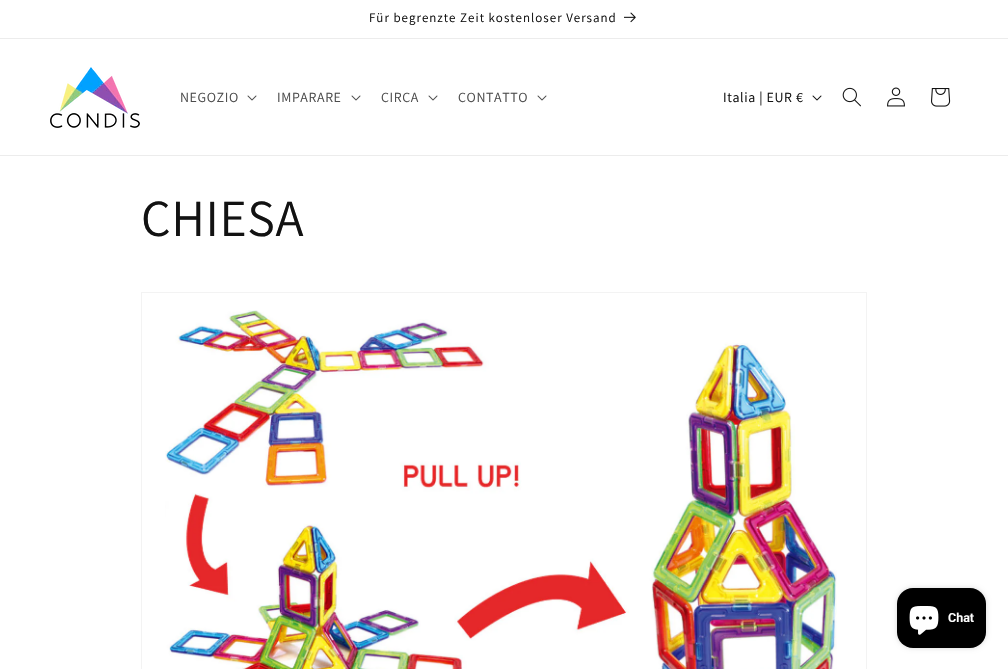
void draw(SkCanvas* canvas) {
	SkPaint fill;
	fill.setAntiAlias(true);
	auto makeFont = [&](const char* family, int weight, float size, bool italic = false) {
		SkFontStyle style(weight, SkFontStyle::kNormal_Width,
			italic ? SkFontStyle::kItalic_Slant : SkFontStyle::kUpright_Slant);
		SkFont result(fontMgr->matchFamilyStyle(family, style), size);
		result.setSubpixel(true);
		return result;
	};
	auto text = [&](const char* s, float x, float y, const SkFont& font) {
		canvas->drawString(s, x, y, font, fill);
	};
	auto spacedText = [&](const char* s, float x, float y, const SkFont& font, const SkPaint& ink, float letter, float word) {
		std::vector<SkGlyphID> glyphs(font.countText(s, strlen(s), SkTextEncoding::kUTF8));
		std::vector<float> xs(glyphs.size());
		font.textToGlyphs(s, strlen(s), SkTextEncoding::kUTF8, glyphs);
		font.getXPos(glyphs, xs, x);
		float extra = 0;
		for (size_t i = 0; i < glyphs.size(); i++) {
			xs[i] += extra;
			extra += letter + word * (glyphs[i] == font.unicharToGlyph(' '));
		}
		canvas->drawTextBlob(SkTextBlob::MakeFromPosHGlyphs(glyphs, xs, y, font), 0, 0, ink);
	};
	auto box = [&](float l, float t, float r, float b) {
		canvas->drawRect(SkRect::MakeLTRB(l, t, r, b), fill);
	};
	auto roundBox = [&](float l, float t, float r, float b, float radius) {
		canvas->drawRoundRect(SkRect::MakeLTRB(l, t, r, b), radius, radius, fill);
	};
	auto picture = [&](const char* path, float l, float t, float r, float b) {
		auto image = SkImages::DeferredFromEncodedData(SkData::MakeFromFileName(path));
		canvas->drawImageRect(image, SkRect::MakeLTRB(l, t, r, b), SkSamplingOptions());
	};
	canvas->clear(0xFFFFFFFF);
	fill.setColor(0xFFECECEC);
	box(0, 38, 1008, 39);
	picture("image0.png", 624, 12, 636, 23);
	box(0, 155, 1008, 156);
	picture("image1.png", 50, 67, 140, 128);
	picture("image2.png", 247, 95, 257, 101);
	picture("image2.png", 351, 95, 361, 101);
	picture("image2.png", 428, 95, 438, 101);
	picture("image2.png", 537, 95, 547, 101);
	picture("image3.png", 812, 95, 822, 101);
	picture("image4.png", 842, 87, 861, 107);
	picture("image5.png", 887, 87, 905, 107);
	picture("image6.png", 931, 88, 951, 107);
	fill.setStyle(SkPaint::kStroke_Style);
	fill.setStrokeWidth(1);
	fill.setColor(0xFFF3F3F3);
	canvas->drawRect(SkRect::MakeLTRB(141.5f, 292.5f, 866.5f, 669.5f), fill);
	picture("image7.png", 165, 310, 837, 669);
	fill.setStyle(SkPaint::kFill_Style);
	fill.setColor(0x26000000);
	fill.setMaskFilter(SkMaskFilter::MakeBlur(kNormal_SkBlurStyle, 2.5f));
	canvas->drawRoundRect(SkRect::MakeLTRB(897, 588, 986, 648), 16, 16, fill);
	fill.setMaskFilter(nullptr);
	fill.setColor(0xFF000000);
	roundBox(897, 588, 986, 648, 16);
	picture("image8.png", 909, 606, 939, 635);
	auto font1 = makeFont("Assistant", 400, 13);
	fill.setColor(0xFF121212);
	spacedText("Für begrenzte Zeit kostenloser Versand", 369, 22, font1, fill, 1, 0);
	auto font2 = makeFont("Assistant", 400, 14);
	fill.setColor(0xFF4D4D4D);
	spacedText("NEGOZIO", 180, 102, font2, fill, 0.6f, 0);
	spacedText("IMPARARE", 277, 102, font2, fill, 0.6f, 0);
	spacedText("CIRCA", 381, 102, font2, fill, 0.6f, 0);
	spacedText("CONTATTO", 458, 102, font2, fill, 0.6f, 0);
	fill.setColor(0xFF121212);
	spacedText("Italia | EUR €", 723, 102, font2, fill, 0.6f, 0);
	auto font3 = makeFont("Assistant", 400, 52);
	spacedText("CHIESA", 141, 236, font3, fill, 0.6f, 0);
	auto font4 = makeFont("Roboto", 600, 12.5f);
	fill.setColor(0xFFFFFFFF);
	text("Chat", 948, 622, font4);
}
